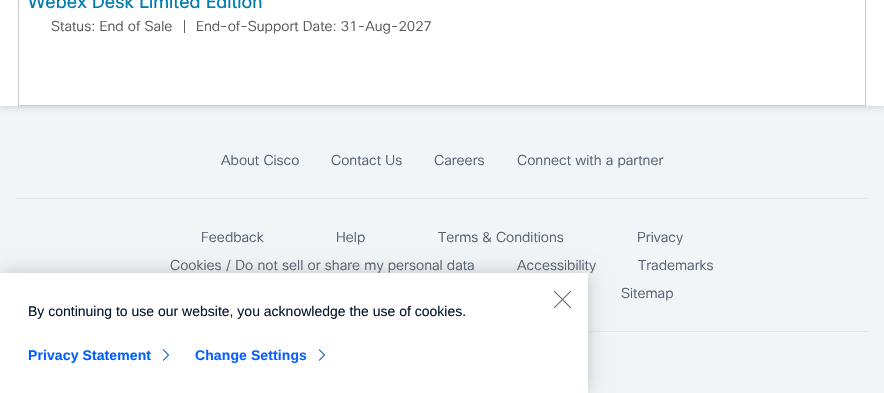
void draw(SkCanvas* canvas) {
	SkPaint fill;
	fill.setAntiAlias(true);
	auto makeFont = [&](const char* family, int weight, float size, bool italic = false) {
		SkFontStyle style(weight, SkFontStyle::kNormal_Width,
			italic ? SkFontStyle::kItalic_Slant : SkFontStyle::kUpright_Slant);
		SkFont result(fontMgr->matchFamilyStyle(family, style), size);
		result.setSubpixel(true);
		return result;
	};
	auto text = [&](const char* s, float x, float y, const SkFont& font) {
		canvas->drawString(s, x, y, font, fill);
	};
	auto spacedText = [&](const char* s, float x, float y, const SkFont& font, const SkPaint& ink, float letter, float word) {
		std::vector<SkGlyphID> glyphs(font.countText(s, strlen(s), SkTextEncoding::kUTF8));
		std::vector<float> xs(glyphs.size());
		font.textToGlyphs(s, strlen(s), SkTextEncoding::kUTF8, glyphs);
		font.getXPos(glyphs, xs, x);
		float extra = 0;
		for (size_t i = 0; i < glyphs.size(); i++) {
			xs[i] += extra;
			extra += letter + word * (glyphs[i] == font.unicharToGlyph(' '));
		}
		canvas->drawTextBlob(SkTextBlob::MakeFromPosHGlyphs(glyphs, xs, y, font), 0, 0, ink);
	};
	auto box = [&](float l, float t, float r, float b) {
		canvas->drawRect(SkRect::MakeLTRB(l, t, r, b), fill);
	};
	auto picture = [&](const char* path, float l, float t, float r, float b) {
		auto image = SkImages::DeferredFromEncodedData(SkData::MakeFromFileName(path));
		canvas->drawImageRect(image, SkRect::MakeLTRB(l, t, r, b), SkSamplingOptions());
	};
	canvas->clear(0xFFF2F5F7);
	fill.setColor(0x1F000000);
	fill.setMaskFilter(SkMaskFilter::MakeBlur(kNormal_SkBlurStyle, 2.5f));
	canvas->drawRect(SkRect::MakeLTRB(0, -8, 884, 108), fill);
	fill.setMaskFilter(nullptr);
	fill.setColor(0xFFFFFFFF);
	box(0, 0, 884, 106);
	fill.setStyle(SkPaint::kStroke_Style);
	fill.setStrokeWidth(1);
	fill.setColor(0xFFCCCCCC);
	canvas->drawRect(SkRect::MakeLTRB(18.5f, -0.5f, 865.5f, 105.5f), fill);
	fill.setStyle(SkPaint::kFill_Style);
	fill.setColor(0xFFE6E7E8);
	box(16, 198, 868, 199);
	box(588, 331, 868, 332);
	fill.setColor(0x33000000);
	fill.setMaskFilter(SkMaskFilter::MakeBlur(kNormal_SkBlurStyle, 9));
	canvas->drawRect(SkRect::MakeLTRB(0, 273, 588, 393), fill);
	fill.setMaskFilter(nullptr);
	fill.setColor(0xFFFFFFFF);
	box(0, 273, 588, 393);
	picture("image0.png", 553, 290, 572, 309);
	picture("image1.png", 162, 349, 169, 361);
	picture("image1.png", 318, 349, 325, 361);
	auto font1 = makeFont("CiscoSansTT", 400, 18);
	fill.setColor(0xFF017CAD);
	text("Webex Desk Limited Edition", 28, 8, font1);
	auto font2 = makeFont("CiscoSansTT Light", 300, 14);
	fill.setColor(0xFF58585B);
	text("Status: End of Sale", 51, 31, font2);
	text("|", 182, 31, font2);
	text("End-of-Support Date: 31-Aug-2027", 196, 31, font2);
	fill.setColor(0xFF536070);
	text("About Cisco", 221, 165, font2);
	text("Contact Us", 331, 165, font2);
	text("Careers", 434, 165, font2);
	text("Connect with a partner", 517, 165, font2);
	text("Feedback", 201, 242, font2);
	text("Help", 336, 242, font2);
	text("Terms & Conditions", 438, 242, font2);
	text("Privacy", 637, 242, font2);
	text("Cookies / Do not sell or share my personal data", 170, 270, font2);
	text("Accessibility", 517, 270, font2);
	text("Trademarks", 638, 270, font2);
	text("Sitemap", 621, 298, font2);
	auto font3 = makeFont("Liberation Sans", 400, 14);
	fill.setColor(0xFF07182D);
	text("By continuing to use our website, you acknowledge the use of cookies.", 28, 316, font3);
	auto font4 = makeFont("Liberation Sans", 700, 14);
	fill.setColor(0xFF0060FF);
	spacedText("Privacy Statement", 28, 360, font4, fill, 0.1f, 0);
	fill.setColor(0xFF0A60FF);
	spacedText("Change Settings", 195, 360, font4, fill, 0.1f, 0);
}
